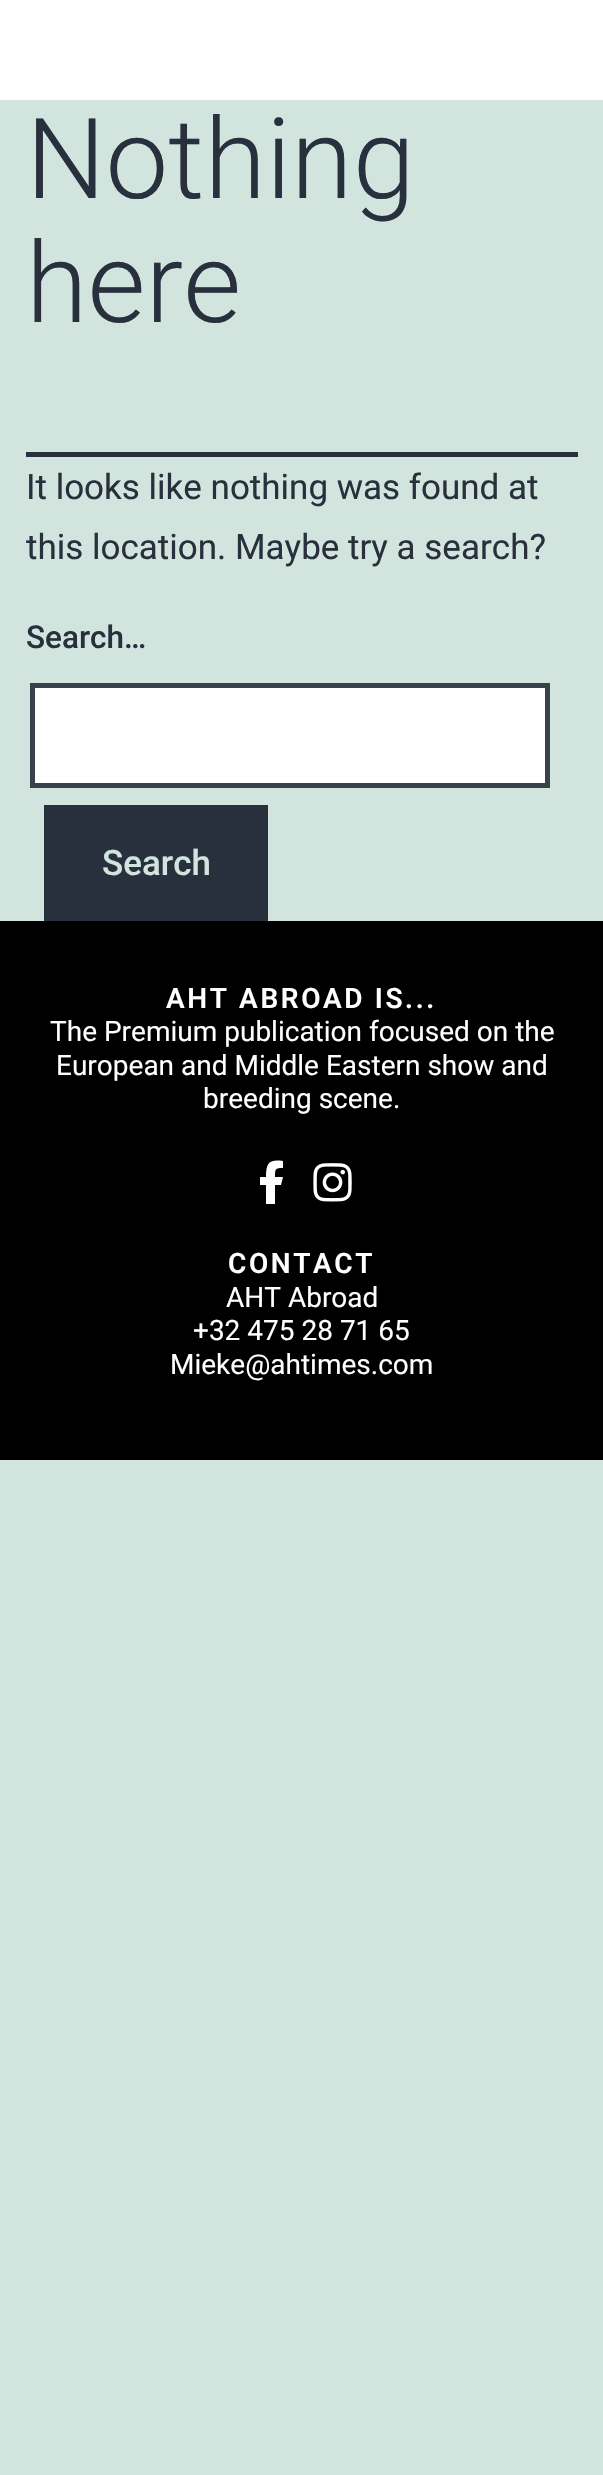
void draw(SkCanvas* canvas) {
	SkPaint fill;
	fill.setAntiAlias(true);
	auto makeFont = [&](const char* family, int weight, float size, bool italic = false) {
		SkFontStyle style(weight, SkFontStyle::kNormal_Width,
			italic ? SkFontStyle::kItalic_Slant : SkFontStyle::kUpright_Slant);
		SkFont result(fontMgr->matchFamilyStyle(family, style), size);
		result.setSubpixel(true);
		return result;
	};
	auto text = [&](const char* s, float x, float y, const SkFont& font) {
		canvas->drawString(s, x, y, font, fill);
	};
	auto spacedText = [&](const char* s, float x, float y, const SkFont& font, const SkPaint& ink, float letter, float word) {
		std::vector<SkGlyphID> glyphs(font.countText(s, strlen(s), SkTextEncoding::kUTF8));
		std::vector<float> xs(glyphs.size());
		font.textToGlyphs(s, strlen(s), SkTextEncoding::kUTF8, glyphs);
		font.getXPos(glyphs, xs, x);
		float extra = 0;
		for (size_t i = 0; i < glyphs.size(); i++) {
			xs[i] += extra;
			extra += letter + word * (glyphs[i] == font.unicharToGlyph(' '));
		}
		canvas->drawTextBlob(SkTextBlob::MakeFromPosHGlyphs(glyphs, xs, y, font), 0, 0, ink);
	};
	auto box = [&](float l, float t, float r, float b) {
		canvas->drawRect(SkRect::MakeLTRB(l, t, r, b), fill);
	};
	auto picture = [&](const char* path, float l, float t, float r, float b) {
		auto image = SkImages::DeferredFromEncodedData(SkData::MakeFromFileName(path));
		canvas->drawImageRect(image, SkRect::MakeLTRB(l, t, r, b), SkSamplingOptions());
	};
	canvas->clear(0xFFD1E4DD);
	fill.setColor(0xFFFFFFFF);
	box(0, 0, 603, 100);
	fill.setColor(0xFF28303D);
	box(26, 452, 578, 457);
	fill.setColor(0xFFFFFFFF);
	canvas->drawRect(SkRect::MakeLTRB(32.5f, 685.5f, 547.5f, 785.5f), fill);
	fill.setStyle(SkPaint::kStroke_Style);
	fill.setStrokeWidth(5);
	fill.setColor(0xFF39414D);
	canvas->drawRect(SkRect::MakeLTRB(32.5f, 685.5f, 547.5f, 785.5f), fill);
	fill.setStyle(SkPaint::kFill_Style);
	fill.setColor(0xFF28303D);
	box(44, 805, 268, 921);
	fill.setColor(0xFF000000);
	box(0, 921, 603, 1460);
	fill.setColor(0xFFFFFFFF);
	canvas->drawPath(SkPathBuilder().moveTo(281, 1185).lineTo(275, 1185).lineTo(275, 1204).lineTo(266, 1204).lineTo(266, 1185).lineTo(260, 1185).lineTo(260, 1177).lineTo(266, 1177).cubicTo(266, 1163, 269, 1159, 283, 1161).lineTo(283, 1168).cubicTo(275, 1168, 275, 1169, 275, 1177).lineTo(283, 1177).close().detach(), fill);
	picture("image0.png", 313, 1163, 352, 1202);
	auto font1 = makeFont("Roboto", 300, 112);
	fill.setColor(0xFF28303D);
	text("Nothing", 26, 198, font1);
	text("here", 26, 322, font1);
	auto font2 = makeFont("Roboto", 400, 35);
	text("It looks like nothing was found at", 26, 499, font2);
	text("this location. Maybe try a search?", 26, 559, font2);
	auto font3 = makeFont("Roboto", 500, 31.5f);
	text("Search…", 26, 648, font3);
	auto font4 = makeFont("Roboto", 500, 35);
	fill.setColor(0xFFD1E4DD);
	text("Search", 102, 875, font4);
	auto font5 = makeFont("Roboto", 600, 28);
	fill.setColor(0xFFFFFFFF);
	spacedText("AHT ABROAD IS...", 166, 1008, font5, fill, 2.6f, 0);
	auto font6 = makeFont("Roboto", 400, 28);
	text("The Premium publication focused on the", 50, 1041, font6);
	text("European and Middle Eastern show and", 56, 1075, font6);
	text("breeding scene.", 203, 1108, font6);
	spacedText("CONTACT", 228, 1273, font5, fill, 2.6f, 0);
	text("AHT Abroad", 226, 1307, font6);
	text("+32 475 28 71 65", 193, 1340, font6);
	text("Mieke@ahtimes.com", 170, 1374, font6);
}
